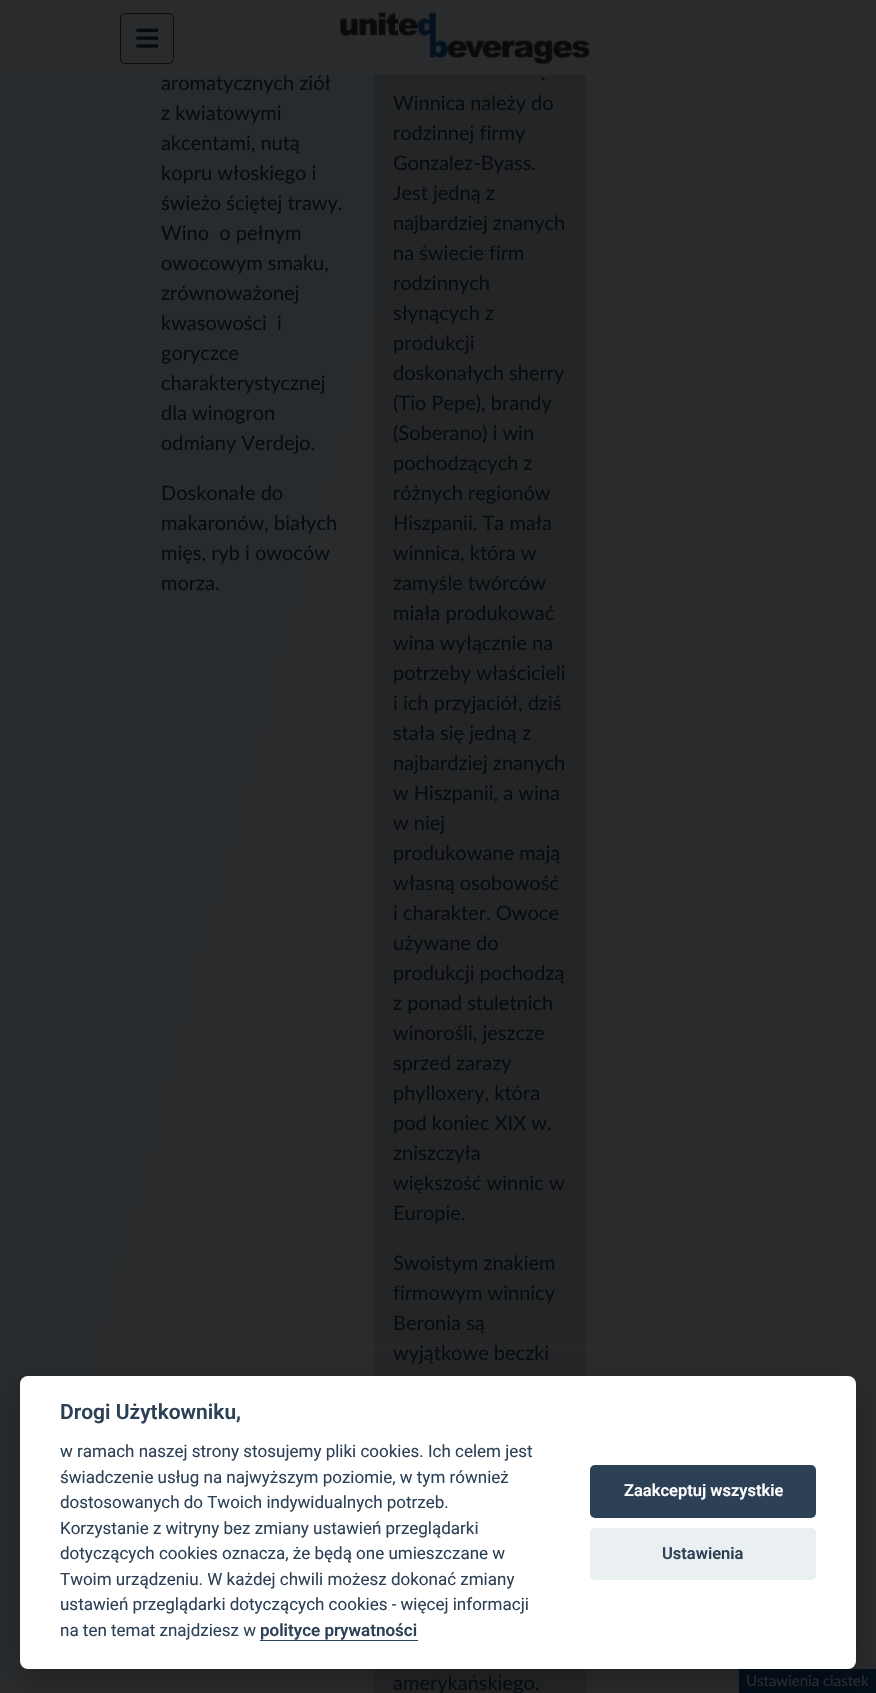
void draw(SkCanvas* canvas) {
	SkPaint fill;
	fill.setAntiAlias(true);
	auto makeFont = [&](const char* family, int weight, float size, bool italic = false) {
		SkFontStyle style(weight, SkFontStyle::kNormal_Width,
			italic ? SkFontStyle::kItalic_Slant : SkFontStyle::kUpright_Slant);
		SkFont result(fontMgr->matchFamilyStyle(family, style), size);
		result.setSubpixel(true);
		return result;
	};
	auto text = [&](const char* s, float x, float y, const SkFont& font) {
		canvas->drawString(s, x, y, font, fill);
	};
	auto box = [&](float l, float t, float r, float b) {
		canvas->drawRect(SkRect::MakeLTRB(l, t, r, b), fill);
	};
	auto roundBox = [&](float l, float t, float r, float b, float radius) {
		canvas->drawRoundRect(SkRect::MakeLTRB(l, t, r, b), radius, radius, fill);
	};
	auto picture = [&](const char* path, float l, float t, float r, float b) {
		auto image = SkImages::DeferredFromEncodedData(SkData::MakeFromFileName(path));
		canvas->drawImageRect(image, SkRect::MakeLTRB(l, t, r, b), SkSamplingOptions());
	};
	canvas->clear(0xFFFFFFFF);
	picture("image0.png", 0, 75, 876, 1693);
	fill.setColor(0xFF2A2B2D);
	box(0, 0, 876, 75);
	fill.setStyle(SkPaint::kStroke_Style);
	fill.setStrokeWidth(1);
	fill.setColor(0xFF0B0D0E);
	canvas->drawRoundRect(SkRect::MakeLTRB(120.5f, 13.5f, 173.5f, 63.5f), 4.5f, 4.5f, fill);
	picture("image1.png", 136, 28, 159, 48);
	picture("image2.png", 340, 12, 590, 64);
	fill.setStyle(SkPaint::kFill_Style);
	fill.setColor(0xFF242527);
	box(374, 75, 586, 1693);
	fill.setColor(0xFF030E1A);
	box(739, 1669, 876, 1693);
	fill.setColor(0x47020203);
	fill.setMaskFilter(SkMaskFilter::MakeBlur(kNormal_SkBlurStyle, 19));
	canvas->drawRoundRect(SkRect::MakeLTRB(20, 1389, 856, 1681), 8, 8, fill);
	fill.setMaskFilter(nullptr);
	fill.setColor(0xFFFFFFFF);
	roundBox(20, 1376, 856, 1669, 8);
	fill.setColor(0xFF2D4156);
	box(260, 1640, 418, 1641);
	roundBox(590, 1465, 816, 1518, 5);
	fill.setColor(0xFFEAEFF2);
	roundBox(590, 1528, 816, 1580, 5);
	auto font1 = makeFont("Lato", 400, 20);
	fill.setColor(0xFF080B0D);
	text("aromatycznych ziół", 161, 90, font1);
	text("z kwiatowymi", 161, 120, font1);
	text("akcentami, nutą", 161, 150, font1);
	text("kopru włoskiego i", 161, 180, font1);
	text("świeżo ściętej trawy.", 161, 210, font1);
	text("Wino  o pełnym", 161, 240, font1);
	text("owocowym smaku,", 161, 270, font1);
	text("zrównoważonej", 161, 300, font1);
	text("kwasowości  i", 161, 330, font1);
	text("goryczce", 161, 360, font1);
	text("charakterystycznej", 161, 390, font1);
	text("dla winogron", 161, 420, font1);
	text("odmiany Verdejo.", 161, 450, font1);
	text("Doskonałe do", 161, 500, font1);
	text("makaronów, białych", 161, 530, font1);
	text("mięs, ryb i owoców", 161, 560, font1);
	text("morza.", 161, 590, font1);
	text(".", 541, 80, font1);
	text("Winnica należy do", 393, 110, font1);
	text("rodzinnej firmy", 393, 140, font1);
	text("Gonzalez-Byass.", 393, 170, font1);
	text("Jest jedną z", 393, 200, font1);
	text("najbardziej znanych", 393, 230, font1);
	text("na świecie firm", 393, 260, font1);
	text("rodzinnych", 393, 290, font1);
	text("słynących z", 393, 320, font1);
	text("produkcji", 393, 350, font1);
	text("doskonałych sherry", 393, 380, font1);
	text("(Tio Pepe), brandy", 393, 410, font1);
	text("(Soberano) i win", 393, 440, font1);
	text("pochodzących z", 393, 470, font1);
	text("różnych regionów", 393, 500, font1);
	text("Hiszpanii. Ta mała", 393, 530, font1);
	text("winnica, która w", 393, 560, font1);
	text("zamyśle twórców", 393, 590, font1);
	text("miała produkować", 393, 620, font1);
	text("wina wyłącznie na", 393, 650, font1);
	text("potrzeby właścicieli", 393, 680, font1);
	text("i ich przyjaciół, dziś", 393, 710, font1);
	text("stała się jedną z", 393, 740, font1);
	text("najbardziej znanych", 393, 770, font1);
	text("w Hiszpanii, a wina", 393, 800, font1);
	text("w niej", 393, 830, font1);
	text("produkowane mają", 393, 860, font1);
	text("własną osobowość", 393, 890, font1);
	text("i charakter. Owoce", 393, 920, font1);
	text("używane do", 393, 950, font1);
	text("produkcji pochodzą", 393, 980, font1);
	text("z ponad stuletnich", 393, 1010, font1);
	text("winorośli, jeszcze", 393, 1040, font1);
	text("sprzed zarazy", 393, 1070, font1);
	text("phylloxery, która", 393, 1100, font1);
	text("pod koniec XIX w.", 393, 1130, font1);
	text("zniszczyła", 393, 1160, font1);
	text("większość winnic w", 393, 1190, font1);
	text("Europie.", 393, 1220, font1);
	text("Swoistym znakiem", 393, 1270, font1);
	text("firmowym winnicy", 393, 1300, font1);
	text("Beronia są", 393, 1330, font1);
	text("wyjątkowe beczki", 393, 1360, font1);
	text("amerykańskiego.", 393, 1690, font1);
	auto font2 = makeFont("Roboto", 600, 21);
	fill.setColor(0xFF2D4156);
	text("Drogi Użytkowniku,", 60, 1419, font2);
	auto font3 = makeFont("Roboto", 400, 17);
	text("w ramach naszej strony stosujemy pliki cookies. Ich celem jest", 60, 1457, font3);
	text("świadczenie usług na najwyższym poziomie, w tym również", 60, 1483, font3);
	text("dostosowanych do Twoich indywidualnych potrzeb.", 60, 1508, font3);
	text("Korzystanie z witryny bez zmiany ustawień przeglądarki", 60, 1534, font3);
	text("dotyczących cookies oznacza, że będą one umieszczane w", 60, 1559, font3);
	text("Twoim urządzeniu. W każdej chwili możesz dokonać zmiany", 60, 1585, font3);
	text("ustawień przeglądarki dotyczących cookies - więcej informacji", 60, 1610, font3);
	text("na ten temat znajdziesz w", 60, 1636, font3);
	auto font4 = makeFont("Roboto", 600, 17);
	text("polityce prywatności", 260, 1636, font4);
	auto font5 = makeFont("Roboto", 600, 16.5f);
	fill.setColor(0xFFFFFFFF);
	text("Zaakceptuj wszystkie", 624, 1496, font5);
	fill.setColor(0xFF2D4156);
	text("Ustawienia", 662, 1559, font5);
	auto font6 = makeFont("Lato", 400, 15);
	fill.setColor(0xFF2A2B2D);
	text("Ustawienia ciastek", 746, 1686, font6);
}
